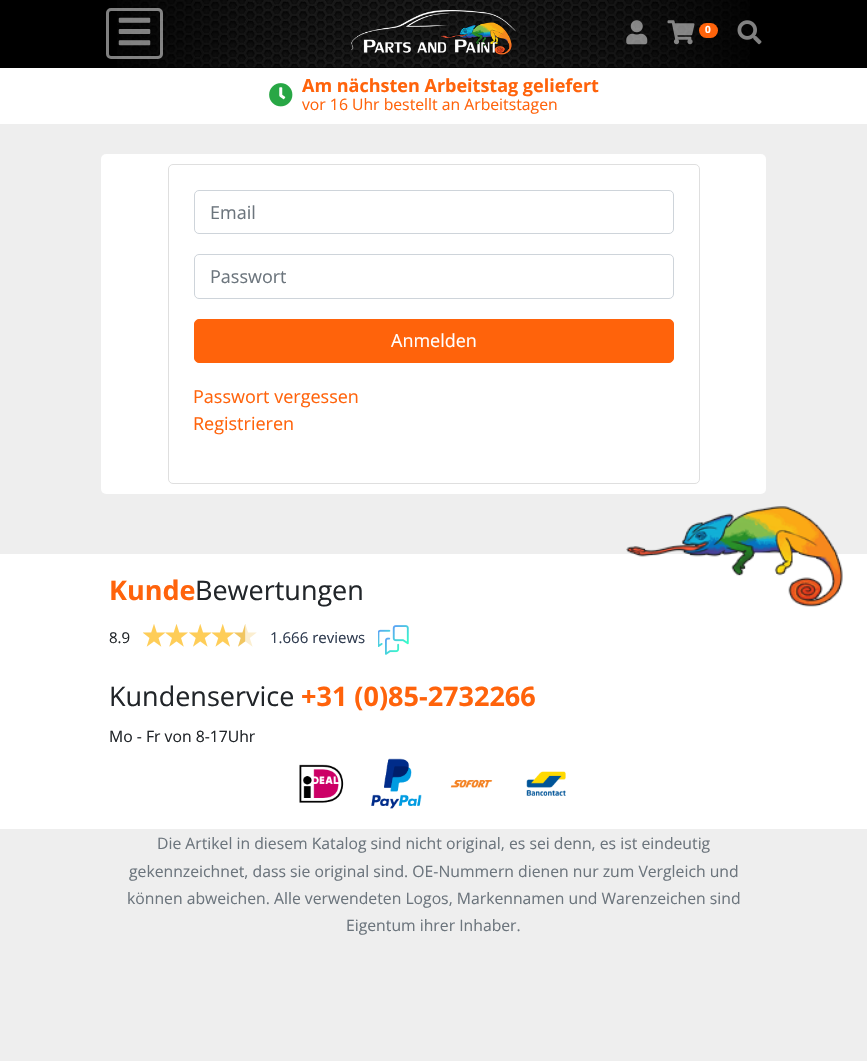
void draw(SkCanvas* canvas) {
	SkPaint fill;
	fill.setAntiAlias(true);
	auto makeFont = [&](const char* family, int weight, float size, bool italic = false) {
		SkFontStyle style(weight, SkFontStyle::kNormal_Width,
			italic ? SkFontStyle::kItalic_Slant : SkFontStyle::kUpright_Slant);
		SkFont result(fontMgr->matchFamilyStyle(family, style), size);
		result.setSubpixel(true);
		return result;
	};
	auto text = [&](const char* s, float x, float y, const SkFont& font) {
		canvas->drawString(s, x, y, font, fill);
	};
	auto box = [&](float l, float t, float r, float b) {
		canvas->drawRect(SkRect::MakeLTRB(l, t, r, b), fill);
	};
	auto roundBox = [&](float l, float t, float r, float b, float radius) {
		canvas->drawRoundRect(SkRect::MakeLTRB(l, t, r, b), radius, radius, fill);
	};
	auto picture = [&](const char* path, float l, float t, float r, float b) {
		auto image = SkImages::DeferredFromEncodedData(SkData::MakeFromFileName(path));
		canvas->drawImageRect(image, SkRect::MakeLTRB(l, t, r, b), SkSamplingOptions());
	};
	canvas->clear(0xFFEEEEEE);
	fill.setColor(0xFF000000);
	box(0, 0, 867, 68);
	picture("image0.png", 117, 0, 750, 68);
	fill.setStyle(SkPaint::kStroke_Style);
	fill.setStrokeWidth(3);
	fill.setColor(0x80FFFFFF);
	canvas->drawRoundRect(SkRect::MakeLTRB(107.5f, 9.5f, 161.5f, 57.5f), 3.5f, 3.5f, fill);
	picture("image1.png", 118, 17, 151, 46);
	picture("image2.png", 351, 10, 517, 55);
	picture("image3.png", 626, 20, 648, 45);
	picture("image4.png", 667, 20, 695, 45);
	fill.setStyle(SkPaint::kFill_Style);
	fill.setColor(0xFFFF630B);
	roundBox(699, 23, 718, 38, 7.5f);
	picture("image5.png", 737, 20, 762, 45);
	fill.setColor(0xFFFFFFFF);
	box(0, 68, 867, 124);
	picture("image6.png", 269, 83, 293, 107);
	roundBox(101, 154, 766, 494, 5);
	fill.setStyle(SkPaint::kStroke_Style);
	fill.setStrokeWidth(1);
	fill.setColor(0xFFDFDFDF);
	canvas->drawRoundRect(SkRect::MakeLTRB(168.5f, 164.5f, 699.5f, 483.5f), 4.5f, 4.5f, fill);
	fill.setColor(0xFFCED4DA);
	canvas->drawRoundRect(SkRect::MakeLTRB(194.5f, 190.5f, 673.5f, 233.5f), 4.5f, 4.5f, fill);
	canvas->drawRoundRect(SkRect::MakeLTRB(194.5f, 254.5f, 673.5f, 298.5f), 4.5f, 4.5f, fill);
	fill.setStyle(SkPaint::kFill_Style);
	fill.setColor(0xFFFF630B);
	canvas->drawRoundRect(SkRect::MakeLTRB(194.5f, 319.5f, 673.5f, 362.5f), 4.5f, 4.5f, fill);
	fill.setStyle(SkPaint::kStroke_Style);
	canvas->drawRoundRect(SkRect::MakeLTRB(194.5f, 319.5f, 673.5f, 362.5f), 4.5f, 4.5f, fill);
	fill.setStyle(SkPaint::kFill_Style);
	fill.setColor(0xFFFFFFFF);
	box(0, 554, 867, 829);
	picture("image7.png", 626, 506, 843, 607);
	picture("image8.png", 143, 624, 165, 647);
	picture("image9.png", 165, 624, 188, 647);
	picture("image10.png", 189, 624, 211, 647);
	picture("image11.png", 211, 624, 234, 647);
	picture("image12.png", 234, 624, 257, 647);
	picture("image13.png", 378, 625, 409, 655);
	picture("image14.png", 299, 764, 344, 803);
	picture("image15.png", 371, 758, 422, 809);
	picture("image16.png", 450, 779, 493, 788);
	picture("image17.png", 526, 771, 566, 796);
	auto font1 = makeFont("Open Sans", 700, 10);
	text("0", 705, 33, font1);
	auto font2 = makeFont("Open Sans", 700, 18);
	fill.setColor(0xFFFF630B);
	text("Am nächsten Arbeitstag geliefert", 302, 92, font2);
	auto font3 = makeFont("Open Sans", 400, 15.75f);
	text("vor 16 Uhr bestellt an Arbeitstagen", 302, 110, font3);
	auto font4 = makeFont("Open Sans", 400, 18);
	fill.setColor(0xFF6C757D);
	text("Email", 210, 219, font4);
	text("Passwort", 210, 283, font4);
	fill.setColor(0xFFFFFFFF);
	text("Anmelden", 391, 347, font4);
	fill.setColor(0xFFFF630B);
	text("Passwort vergessen", 193, 403, font4);
	text("Registrieren", 193, 430, font4);
	auto font5 = makeFont("Open Sans", 700, 27);
	text("Kunde", 109, 600, font5);
	auto font6 = makeFont("Open Sans", 400, 27);
	fill.setColor(0xFF212529);
	text("Bewertungen", 195, 600, font6);
	auto font7 = makeFont("Open Sans", 400, 15);
	text("8.9", 109, 643, font7);
	fill.setColor(0xFF303C50);
	text("1.666 reviews", 270, 643, font7);
	fill.setColor(0xFF212529);
	text("Kundenservice", 109, 706, font6);
	fill.setColor(0xFFFF630B);
	text("+31 (0)85-2732266", 301, 706, font5);
	fill.setColor(0xFF212529);
	text("Mo - Fr von 8-17Uhr", 109, 742, font3);
	fill.setColor(0xFF6C757D);
	text("Die Artikel in diesem Katalog sind nicht original, es sei denn, es ist eindeutig", 157, 849, font3);
	text("gekennzeichnet, dass sie original sind. OE-Nummern dienen nur zum Vergleich und", 129, 877, font3);
	text("können abweichen. Alle verwendeten Logos, Markennamen und Warenzeichen sind", 127, 904, font3);
	text("Eigentum ihrer Inhaber.", 346, 931, font3);
}
